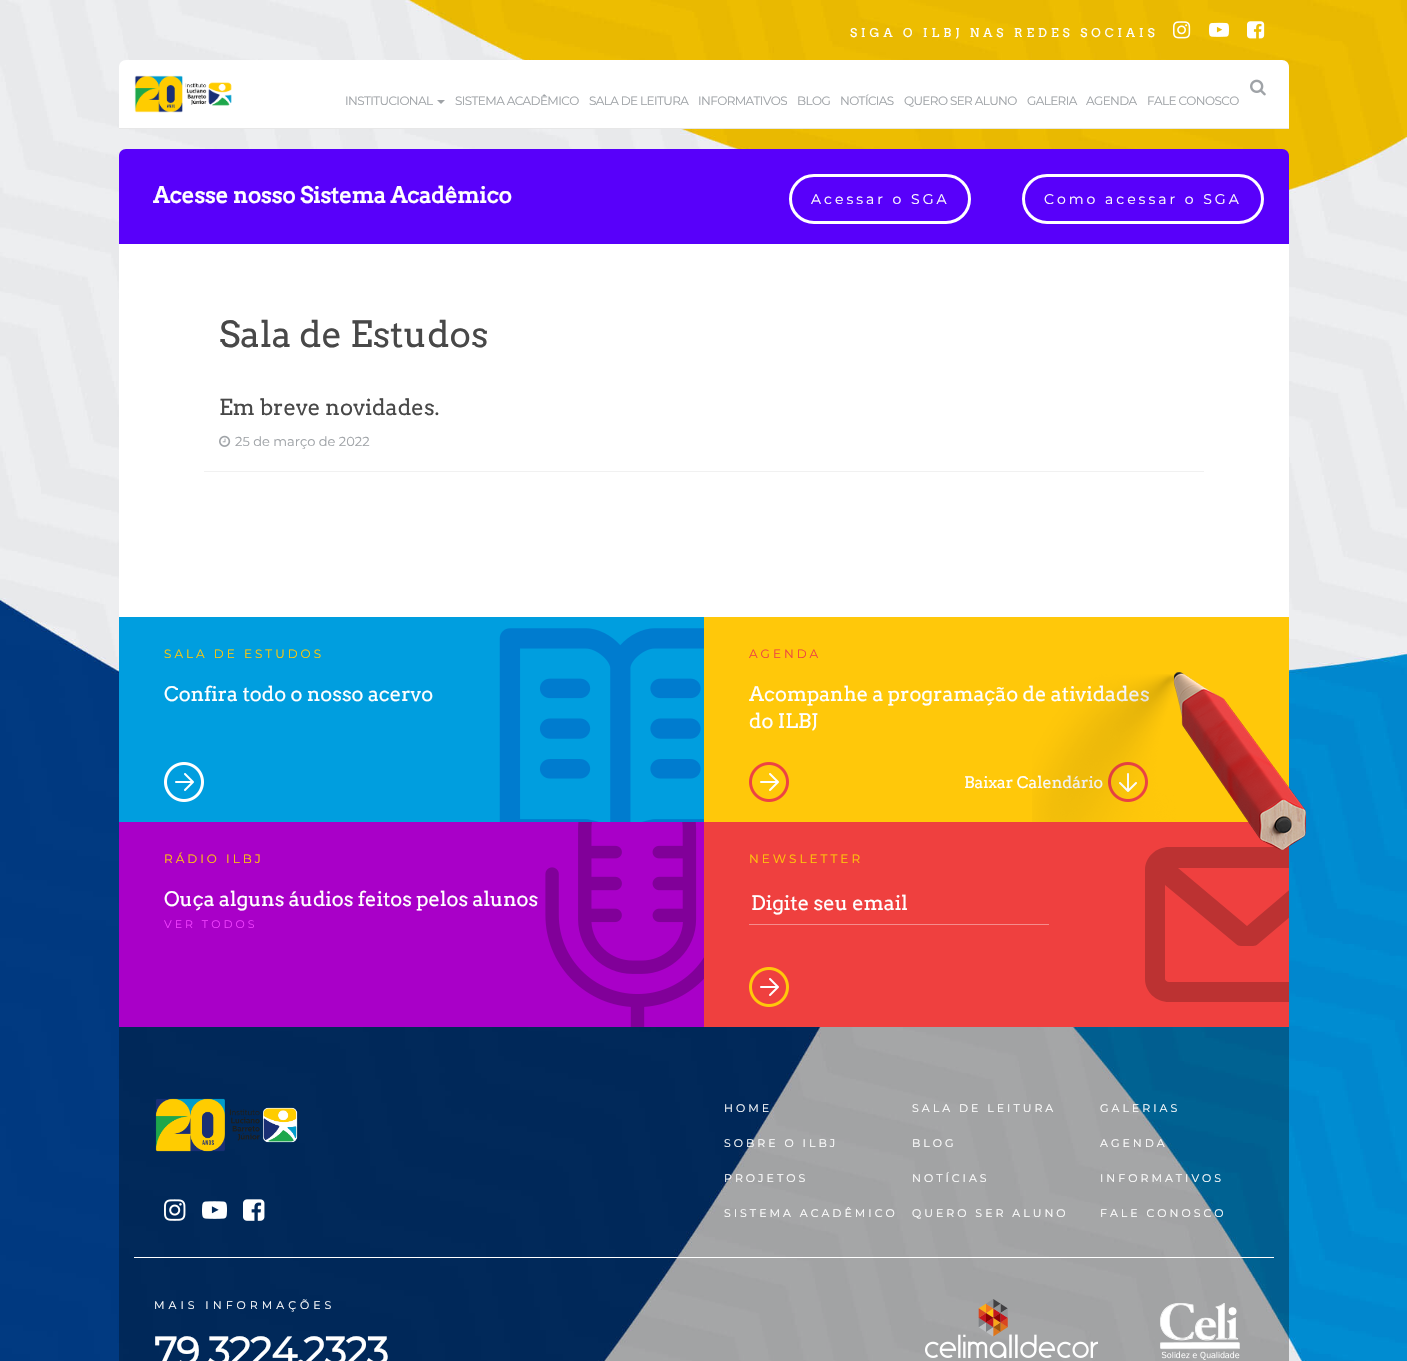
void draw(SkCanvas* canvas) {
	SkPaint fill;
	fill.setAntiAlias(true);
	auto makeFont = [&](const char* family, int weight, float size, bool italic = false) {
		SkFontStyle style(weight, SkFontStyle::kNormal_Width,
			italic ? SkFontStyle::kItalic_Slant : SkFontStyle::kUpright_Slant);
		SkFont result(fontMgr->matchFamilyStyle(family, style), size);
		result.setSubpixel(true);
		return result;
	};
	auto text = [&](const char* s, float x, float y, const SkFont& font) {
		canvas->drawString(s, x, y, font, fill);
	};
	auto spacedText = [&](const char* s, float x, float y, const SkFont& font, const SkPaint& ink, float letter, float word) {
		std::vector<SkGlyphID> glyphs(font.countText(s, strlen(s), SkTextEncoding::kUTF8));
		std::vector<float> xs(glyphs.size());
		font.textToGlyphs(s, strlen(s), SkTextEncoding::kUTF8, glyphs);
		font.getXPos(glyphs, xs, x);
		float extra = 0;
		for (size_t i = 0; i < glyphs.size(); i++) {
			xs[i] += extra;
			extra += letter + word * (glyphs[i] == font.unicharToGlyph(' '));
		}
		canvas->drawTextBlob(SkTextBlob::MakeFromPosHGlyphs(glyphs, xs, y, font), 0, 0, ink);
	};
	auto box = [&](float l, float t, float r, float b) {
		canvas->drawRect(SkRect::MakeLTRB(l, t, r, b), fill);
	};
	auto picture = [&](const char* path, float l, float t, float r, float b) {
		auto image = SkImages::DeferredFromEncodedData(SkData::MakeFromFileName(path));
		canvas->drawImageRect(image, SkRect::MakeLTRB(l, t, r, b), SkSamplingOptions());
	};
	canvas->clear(0xFFFFFFFF);
	picture("image0.png", 0, 0, 1407, 1361);
	picture("image1.png", 1173, 21, 1191, 39);
	picture("image2.png", 1209, 22, 1229, 37);
	picture("image3.png", 1247, 21, 1265, 39);
	fill.setColor(0xFFFFFFFF);
	canvas->drawPath(SkPathBuilder().moveTo(126, 60).lineTo(1282, 60).cubicTo(1286, 60, 1289, 63, 1289, 67).lineTo(1289, 128).lineTo(119, 128).lineTo(119, 67).cubicTo(119, 63, 122, 60, 126, 60).close().detach(), fill);
	fill.setColor(0xFFE7E7E7);
	box(119, 128, 1289, 129);
	picture("image4.png", 134, 75, 232, 113);
	picture("image5.png", 1250, 79, 1266, 96);
	fill.setColor(0xFF9FA3A7);
	canvas->drawPath(SkPathBuilder().moveTo(437, 100).lineTo(445, 100).lineTo(441, 104).close().detach(), fill);
	fill.setColor(0xFF5800FA);
	canvas->drawPath(SkPathBuilder().moveTo(126, 149).lineTo(1282, 149).cubicTo(1286, 149, 1289, 152, 1289, 156).lineTo(1289, 244).lineTo(119, 244).lineTo(119, 156).cubicTo(119, 152, 122, 149, 126, 149).close().detach(), fill);
	fill.setStyle(SkPaint::kStroke_Style);
	fill.setStrokeWidth(3);
	fill.setColor(0xFFFFFFFF);
	canvas->drawRoundRect(SkRect::MakeLTRB(790.5f, 175.5f, 969.5f, 222.5f), 23.5f, 23.5f, fill);
	canvas->drawRoundRect(SkRect::MakeLTRB(1023.5f, 175.5f, 1262.5f, 222.5f), 23.5f, 23.5f, fill);
	fill.setStyle(SkPaint::kFill_Style);
	box(119, 244, 1289, 617);
	fill.setColor(0xFFF1F1F1);
	box(204, 471, 1204, 472);
	picture("image6.png", 219, 435, 231, 447);
	fill.setColor(0xFF009EDF);
	box(119, 617, 704, 822);
	picture("image7.png", 164, 762, 204, 802);
	picture("image8.png", 499, 628, 704, 822);
	fill.setColor(0xFFFFC80A);
	box(704, 617, 1289, 822);
	picture("image9.png", 749, 762, 789, 802);
	picture("image10.png", 1108, 762, 1148, 802);
	fill.setColor(0xFFA900C8);
	box(119, 822, 704, 1027);
	picture("image13.png", 545, 822, 704, 1027);
	fill.setColor(0xFFEF403F);
	box(704, 822, 1289, 1027);
	fill.setColor(0xFFF58C8C);
	box(749, 924, 1049, 925);
	picture("image14.png", 749, 967, 789, 1007);
	canvas->save();
	canvas->clipRect(SkRect::MakeLTRB(1130, 822, 1289, 1027));
	fill.setColor(0xFFBC3232);
	canvas->drawPath(SkPathBuilder().moveTo(1325, 847).lineTo(1169, 847).cubicTo(1156, 847, 1145, 857, 1145, 870).lineTo(1145, 979).cubicTo(1145, 992, 1156, 1002, 1169, 1002).lineTo(1325, 1002).cubicTo(1338, 1002, 1349, 992, 1349, 979).lineTo(1349, 870).cubicTo(1349, 857, 1338, 847, 1325, 847).close().moveTo(1315, 868).lineTo(1247, 926).lineTo(1178, 868).close().moveTo(1328, 979).cubicTo(1328, 980, 1327, 982, 1325, 982).lineTo(1169, 982).cubicTo(1167, 982, 1165, 980, 1165, 979).lineTo(1165, 885).lineTo(1236, 944).cubicTo(1237, 945, 1239, 946, 1241, 946).lineTo(1253, 946).cubicTo(1255, 946, 1257, 945, 1258, 944).lineTo(1328, 885).close().detach(), fill);
	canvas->restore();
	fill.setColor(0x4D000000);
	box(119, 1027, 1289, 1361);
	picture("image15.png", 155, 1098, 298, 1152);
	picture("image16.png", 164, 1199, 186, 1221);
	picture("image17.png", 202, 1201, 227, 1219);
	picture("image18.png", 243, 1199, 265, 1221);
	fill.setColor(0xFFFFFFFF);
	box(134, 1257, 1274, 1258);
	picture("image19.png", 925, 1299, 1098, 1358);
	picture("image20.png", 1160, 1303, 1240, 1360);
	auto font1 = makeFont("Arvo", 400, 12);
	spacedText("SIGA O ILBJ NAS REDES SOCIAIS", 850, 37, font1, fill, 4, 0);
	auto font2 = makeFont("Montserrat", 100, 12);
	fill.setColor(0xFF9FA3A7);
	spacedText("INSTITUCIONAL", 345, 105, font2, fill, -0.6f, 0);
	spacedText("SISTEMA ACADÊMICO", 455, 105, font2, fill, -0.6f, 0);
	spacedText("SALA DE LEITURA", 589, 105, font2, fill, -0.6f, 0);
	spacedText("INFORMATIVOS", 698, 105, font2, fill, -0.6f, 0);
	spacedText("BLOG", 797, 105, font2, fill, -0.6f, 0);
	spacedText("NOTÍCIAS", 840, 105, font2, fill, -0.6f, 0);
	spacedText("QUERO SER ALUNO", 904, 105, font2, fill, -0.6f, 0);
	spacedText("GALERIA", 1027, 105, font2, fill, -0.6f, 0);
	spacedText("AGENDA", 1086, 105, font2, fill, -0.6f, 0);
	spacedText("FALE CONOSCO", 1147, 105, font2, fill, -0.6f, 0);
	auto font3 = makeFont("Arvo", 700, 22);
	fill.setColor(0xFFFFFFFF);
	text("Acesse nosso Sistema Acadêmico", 153, 203, font3);
	auto font4 = makeFont("Montserrat", 100, 14);
	spacedText("Acessar o SGA", 811, 204, font4, fill, 3, 0);
	spacedText("Como acessar o SGA", 1044, 204, font4, fill, 3, 0);
	auto font5 = makeFont("Arvo", 400, 36);
	fill.setColor(0xFF484848);
	text("Sala de Estudos", 219, 347, font5);
	auto font6 = makeFont("Arvo", 400, 22);
	text("Em breve novidades.", 219, 415, font6);
	auto font7 = makeFont("Montserrat", 100, 13);
	fill.setColor(0xFF9FA3A7);
	text("25 de março de 2022", 235, 446, font7);
	fill.setColor(0xFFFFC80A);
	spacedText("SALA DE ESTUDOS", 164, 658, font2, fill, 3, 0);
	auto font8 = makeFont("Arvo", 400, 20);
	fill.setColor(0xFFFFFFFF);
	text("Confira todo o nosso acervo", 164, 701, font8);
	fill.setColor(0xFFED4343);
	spacedText("AGENDA", 749, 658, font2, fill, 3, 0);
	fill.setColor(0xFFFFFFFF);
	text("Acompanhe a programação de atividades", 749, 701, font8);
	text("do ILBJ", 749, 728, font8);
	auto font9 = makeFont("Arvo", 400, 16);
	text("Baixar Calendário", 964, 788, font9);
	picture("image12.png", 1032, 674, 1176, 822);
	picture("image11.png", 1174, 672, 1306, 850);
	fill.setColor(0xFFFFC80A);
	spacedText("RÁDIO ILBJ", 164, 863, font2, fill, 3, 0);
	fill.setColor(0xFFFFFFFF);
	text("Ouça alguns áudios feitos pelos alunos", 164, 906, font8);
	auto font10 = makeFont("Montserrat", 100, 11);
	fill.setColor(0xFFF03FFF);
	spacedText("VER TODOS", 164, 928, font10, fill, 3, 0);
	fill.setColor(0xFFFFC80A);
	spacedText("NEWSLETTER", 749, 863, font2, fill, 3, 0);
	fill.setColor(0xFFFFFFFF);
	text("Digite seu email", 751, 910, font8);
	spacedText("HOME", 724, 1112, font10, fill, 3, 0);
	spacedText("SALA DE LEITURA", 912, 1112, font10, fill, 3, 0);
	spacedText("GALERIAS", 1100, 1112, font10, fill, 3, 0);
	spacedText("SOBRE O ILBJ", 724, 1147, font10, fill, 3, 0);
	spacedText("BLOG", 912, 1147, font10, fill, 3, 0);
	spacedText("AGENDA", 1100, 1147, font10, fill, 3, 0);
	spacedText("PROJETOS", 724, 1182, font10, fill, 3, 0);
	spacedText("NOTÍCIAS", 912, 1182, font10, fill, 3, 0);
	spacedText("INFORMATIVOS", 1100, 1182, font10, fill, 3, 0);
	spacedText("SISTEMA ACADÊMICO", 724, 1217, font10, fill, 3, 0);
	spacedText("QUERO SER ALUNO", 912, 1217, font10, fill, 3, 0);
	spacedText("FALE CONOSCO", 1100, 1217, font10, fill, 3, 0);
	spacedText("MAIS INFORMAÇÕES", 154, 1309, font10, fill, 4, 0);
	auto font11 = makeFont("Montserrat", 700, 39);
	spacedText("79 3224.2323", 154, 1365, font11, fill, -1, 0);
}
